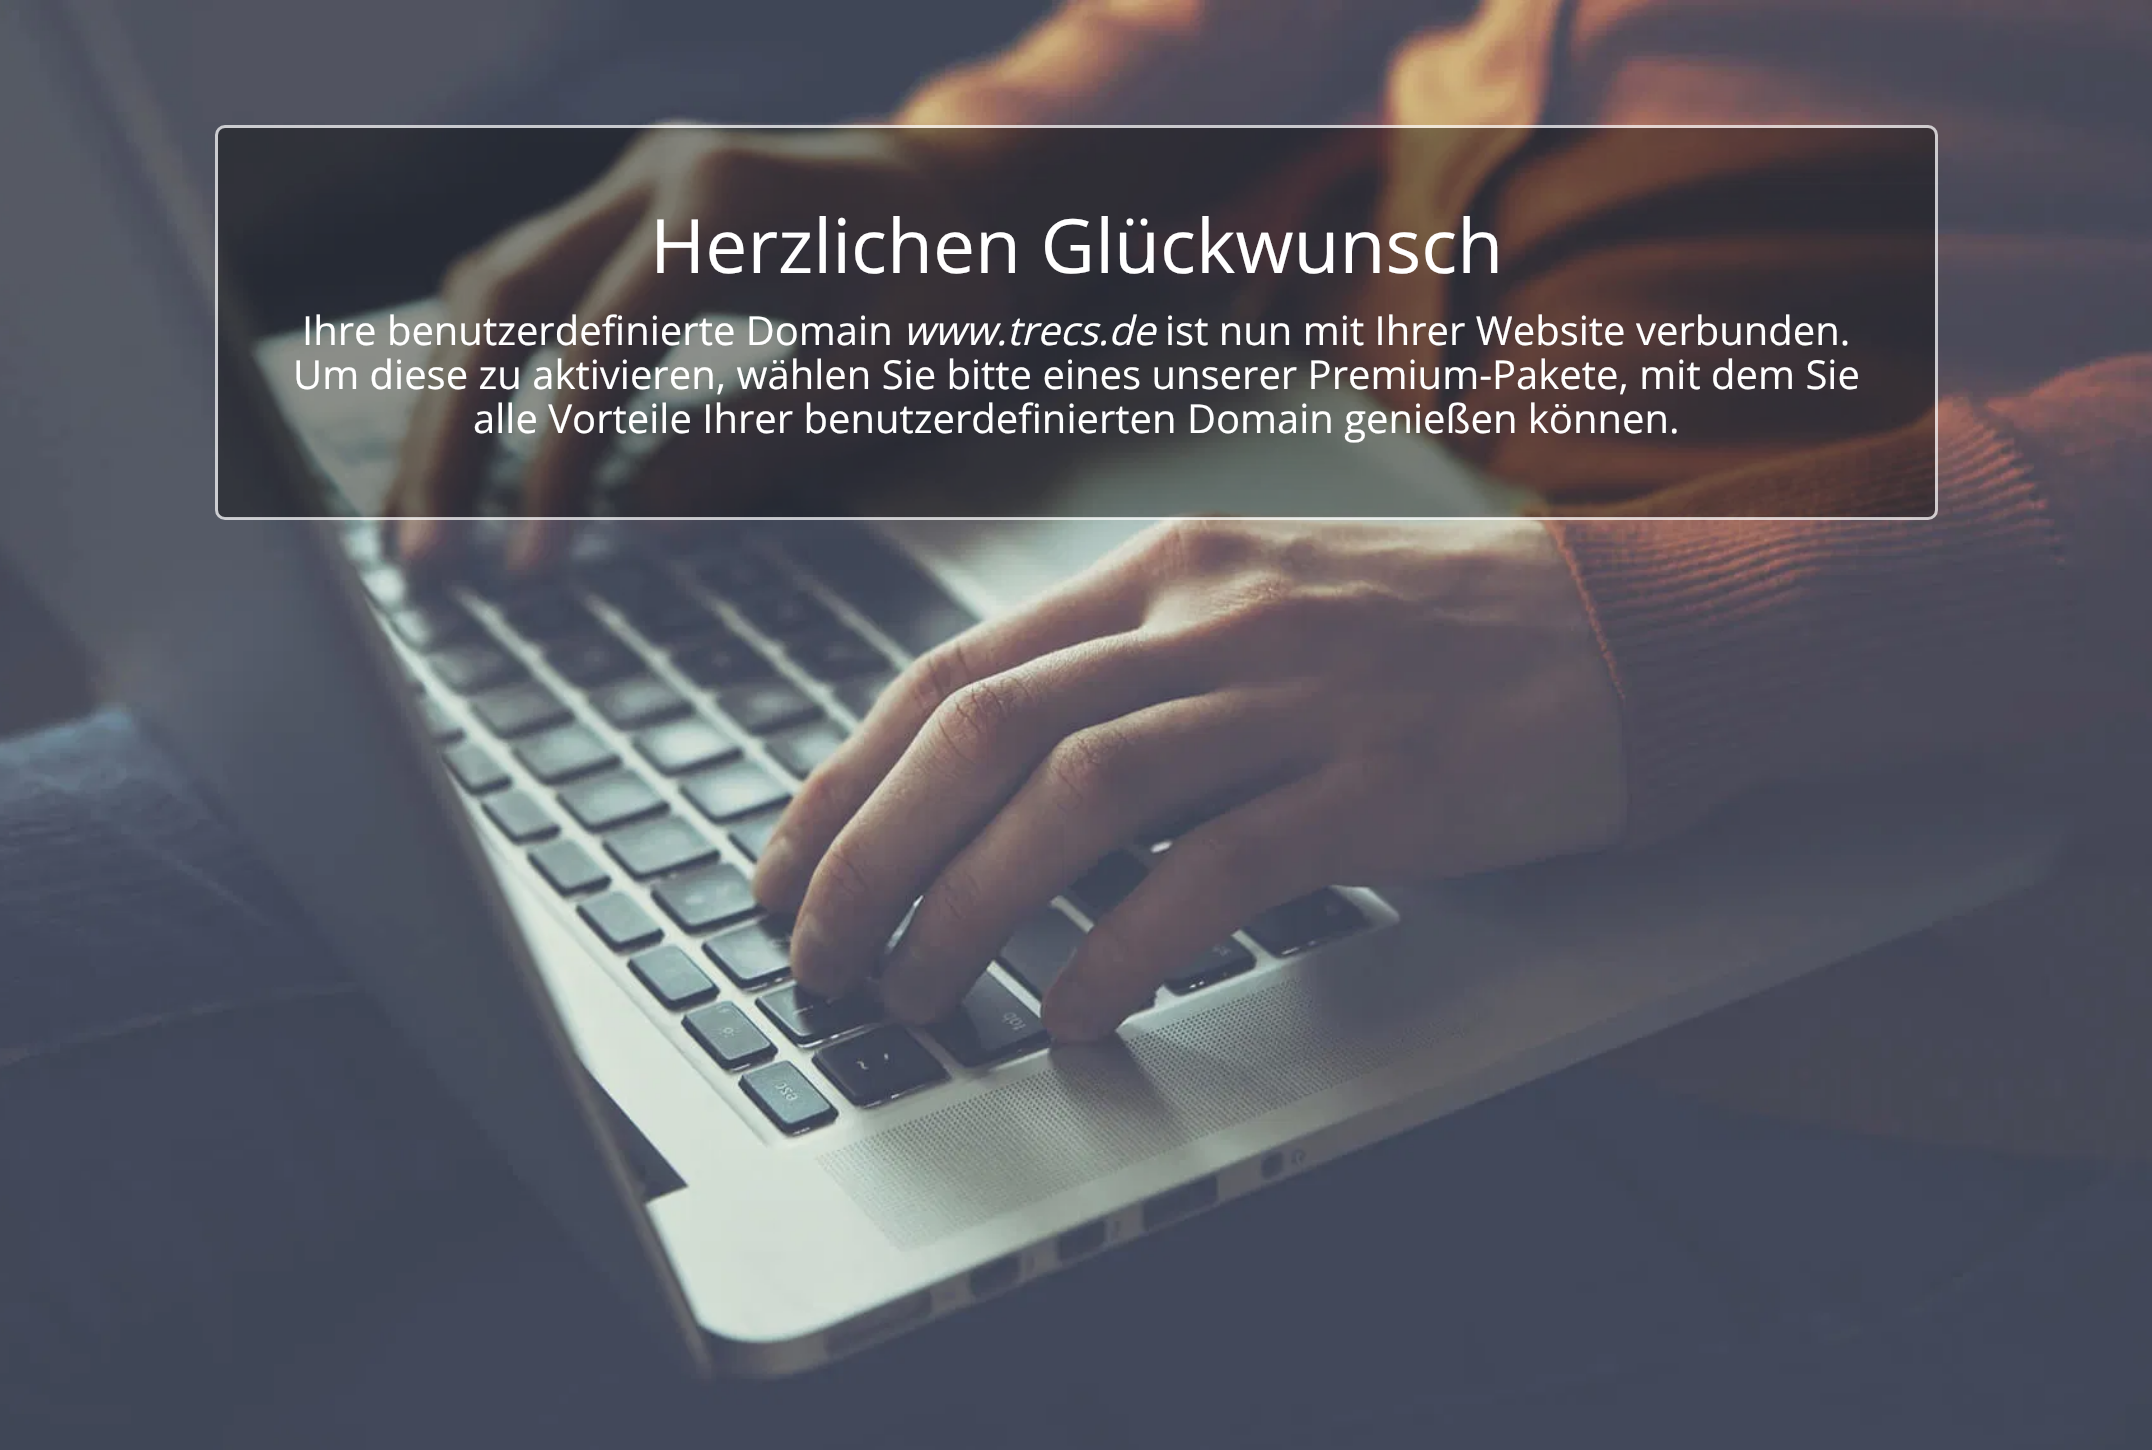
void draw(SkCanvas* canvas) {
	SkPaint fill;
	fill.setAntiAlias(true);
	auto makeFont = [&](const char* family, int weight, float size, bool italic = false) {
		SkFontStyle style(weight, SkFontStyle::kNormal_Width,
			italic ? SkFontStyle::kItalic_Slant : SkFontStyle::kUpright_Slant);
		SkFont result(fontMgr->matchFamilyStyle(family, style), size);
		result.setSubpixel(true);
		return result;
	};
	auto text = [&](const char* s, float x, float y, const SkFont& font) {
		canvas->drawString(s, x, y, font, fill);
	};
	auto roundBox = [&](float l, float t, float r, float b, float radius) {
		canvas->drawRoundRect(SkRect::MakeLTRB(l, t, r, b), radius, radius, fill);
	};
	auto picture = [&](const char* path, float l, float t, float r, float b) {
		auto image = SkImages::DeferredFromEncodedData(SkData::MakeFromFileName(path));
		canvas->drawImageRect(image, SkRect::MakeLTRB(l, t, r, b), SkSamplingOptions());
	};
	canvas->clear(0xFFFFFFFF);
	picture("image0.png", 0, 0, 2152, 1450);
	fill.setColor(0x66000000);
	roundBox(218, 128, 1935, 518, 8);
	fill.setStyle(SkPaint::kStroke_Style);
	fill.setStrokeWidth(3);
	fill.setColor(0xB3FFFFFF);
	canvas->drawRoundRect(SkRect::MakeLTRB(216.5f, 126.5f, 1936.5f, 518.5f), 8.5f, 8.5f, fill);
	auto font1 = makeFont("Open Sans", 400, 75);
	fill.setStyle(SkPaint::kFill_Style);
	fill.setColor(0xFFFFFFFF);
	text("Herzlichen Glückwunsch", 650, 273, font1);
	auto font2 = makeFont("Open Sans", 400, 40);
	text("Ihre benutzerdefinierte Domain", 302, 345, font2);
	auto font3 = makeFont("Open Sans", 400, 40, true);
	text("www.trecs.de", 903, 345, font3);
	text("ist nun mit Ihrer Website verbunden.", 1165, 345, font2);
	text("Um diese zu aktivieren, wählen Sie bitte eines unserer Premium-Pakete, mit dem Sie", 293, 389, font2);
	text("alle Vorteile Ihrer benutzerdefinierten Domain genießen können.", 473, 433, font2);
}
